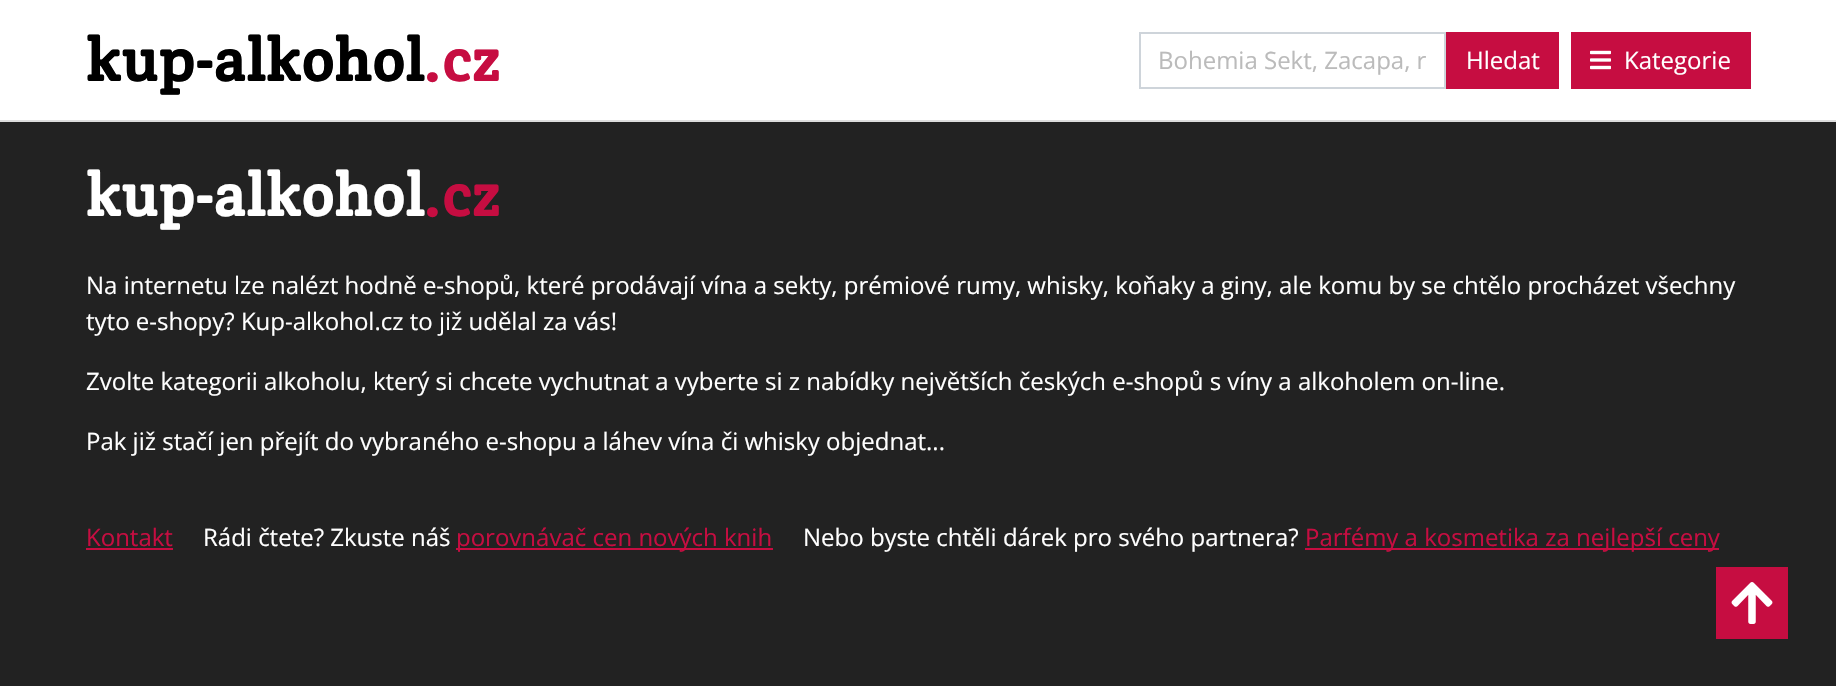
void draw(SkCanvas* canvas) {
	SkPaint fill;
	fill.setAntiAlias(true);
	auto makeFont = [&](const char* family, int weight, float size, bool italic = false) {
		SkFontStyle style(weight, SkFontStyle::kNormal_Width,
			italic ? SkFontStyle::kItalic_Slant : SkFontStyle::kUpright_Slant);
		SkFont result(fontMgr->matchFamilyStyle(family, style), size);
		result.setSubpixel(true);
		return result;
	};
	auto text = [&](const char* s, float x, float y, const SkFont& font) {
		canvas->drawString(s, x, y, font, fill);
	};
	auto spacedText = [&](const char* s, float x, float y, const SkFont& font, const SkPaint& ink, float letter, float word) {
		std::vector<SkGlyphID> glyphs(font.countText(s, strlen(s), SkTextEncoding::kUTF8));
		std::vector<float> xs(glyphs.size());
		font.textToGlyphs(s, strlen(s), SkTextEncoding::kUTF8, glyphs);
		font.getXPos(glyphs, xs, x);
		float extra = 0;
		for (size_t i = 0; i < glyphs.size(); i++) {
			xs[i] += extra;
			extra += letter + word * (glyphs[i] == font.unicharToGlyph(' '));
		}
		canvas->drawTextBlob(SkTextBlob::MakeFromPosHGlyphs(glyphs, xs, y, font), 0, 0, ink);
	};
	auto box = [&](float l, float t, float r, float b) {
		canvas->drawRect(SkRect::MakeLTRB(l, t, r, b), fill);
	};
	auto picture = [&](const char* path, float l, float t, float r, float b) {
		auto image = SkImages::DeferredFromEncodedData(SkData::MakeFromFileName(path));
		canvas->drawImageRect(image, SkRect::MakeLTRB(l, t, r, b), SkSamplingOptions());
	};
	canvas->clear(0xFF222222);
	fill.setColor(0xFFFFFFFF);
	box(0, 0, 1836, 120);
	fill.setColor(0xFFDDDDDD);
	box(0, 120, 1836, 122);
	fill.setStyle(SkPaint::kStroke_Style);
	fill.setStrokeWidth(2);
	fill.setColor(0xFFCED4DA);
	canvas->drawRect(SkRect::MakeLTRB(1140, 33, 1445, 88), fill);
	fill.setStyle(SkPaint::kFill_Style);
	fill.setColor(0xFFC60D41);
	box(1446, 32, 1559, 89);
	box(1571, 32, 1751, 89);
	picture("image0.png", 1590, 50, 1611, 70);
	box(86, 548, 173, 550);
	box(456, 548, 773, 550);
	box(1305, 548, 1719, 550);
	box(1716, 567, 1788, 639);
	picture("image1.png", 1731, 582, 1773, 624);
	auto font1 = makeFont("Crete Round", 700, 60);
	fill.setColor(0xFF000000);
	spacedText("kup-alkohol", 86, 81, font1, fill, 1.5f, 0);
	fill.setColor(0xFFC60D41);
	spacedText(".cz", 424, 81, font1, fill, 1.5f, 0);
	auto font2 = makeFont("Open Sans", 400, 24);
	fill.setColor(0xFFBBBBBB);
	text("Bohemia Sekt, Zacapa, r", 1158, 69, font2);
	fill.setColor(0xFFFFFFFF);
	text("Hledat", 1466, 69, font2);
	text("Kategorie", 1624, 69, font2);
	spacedText("kup-alkohol", 86, 216, font1, fill, 1.5f, 0);
	fill.setColor(0xFFC60D41);
	spacedText(".cz", 424, 216, font1, fill, 1.5f, 0);
	fill.setColor(0xFFFFFFFF);
	text("Na internetu lze nalézt hodně e-shopů, které prodávají vína a sekty, prémiové rumy, whisky, koňaky a giny, ale komu by se chtělo procházet všechny", 86, 294, font2);
	text("tyto e-shopy? Kup-alkohol.cz to již udělal za vás!", 86, 330, font2);
	text("Zvolte kategorii alkoholu, který si chcete vychutnat a vyberte si z nabídky největších českých e-shopů s víny a alkoholem on-line.", 86, 390, font2);
	text("Pak již stačí jen přejít do vybraného e-shopu a láhev vína či whisky objednat...", 86, 450, font2);
	fill.setColor(0xFFC60D41);
	text("Kontakt", 86, 546, font2);
	fill.setColor(0xFFFFFFFF);
	text("Rádi čtete? Zkuste náš", 203, 546, font2);
	fill.setColor(0xFFC60D41);
	text("porovnávač cen nových knih", 456, 546, font2);
	fill.setColor(0xFFFFFFFF);
	text("Nebo byste chtěli dárek pro svého partnera?", 803, 546, font2);
	fill.setColor(0xFFC60D41);
	text("Parfémy a kosmetika za nejlepší ceny", 1305, 546, font2);
}
